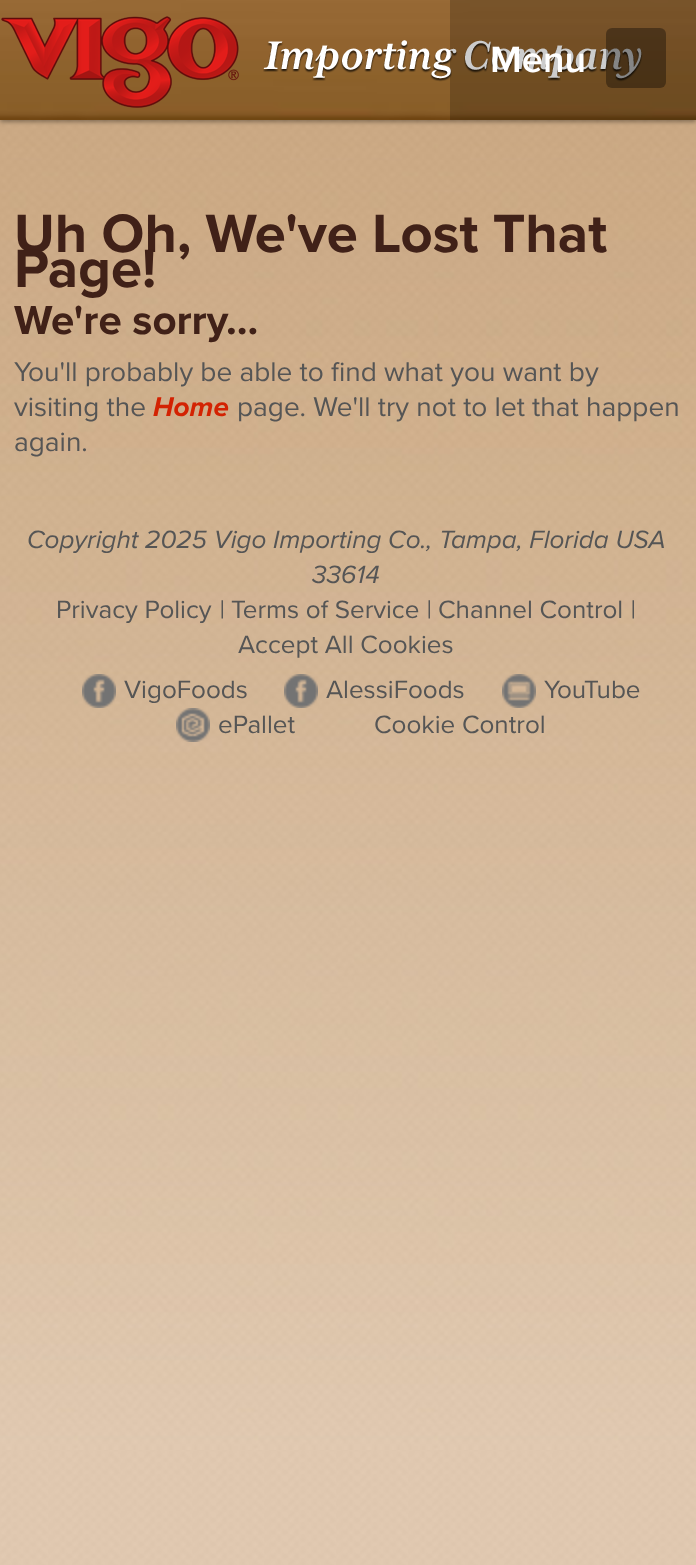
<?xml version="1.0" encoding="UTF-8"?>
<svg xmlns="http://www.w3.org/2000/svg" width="696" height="1565">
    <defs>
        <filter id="blur1" x="-50%" y="-200%" width="200%" height="500%"><feGaussianBlur stdDeviation="2"/></filter>
    </defs>
    <rect width="100%" height="100%" fill="#FFFFFF"/>
    <image x="0" y="1450" width="696" height="115" href="img_01.png"/>
    <image x="0" y="120" width="696" height="1330" href="img_02.png"/>
    <rect x="0" y="2" width="696" height="120" fill="#000000" fill-opacity="0.35" filter="url(#blur1)"/>
    <image x="0" y="0" width="696" height="120" href="img_03.png"/>
    <image x="1" y="16" width="238" height="92" href="img_04.png"/>
    <image x="263" y="40" width="380" height="42" href="img_05.png"/>
    <rect x="450" y="0" width="246" height="120" fill="#000000" fill-opacity="0.2"/>
    <text x="490" y="72" font-family="Proxima Nova" font-size="38" font-weight="600" fill="#FFFFFF">Menu</text>
    <rect x="606" y="28" width="60" height="60" rx="6" fill="#000000" fill-opacity="0.35"/>
    <text font-family="Proxima Nova" font-size="56" font-weight="700" fill="#402118">
        <tspan x="14" y="252">Uh Oh, We've Lost That</tspan>
        <tspan x="14" y="287">Page!</tspan>
    </text>
    <text x="14" y="334" font-family="Proxima Nova" font-size="42" font-weight="700" fill="#402118">We're sorry...</text>
    <text font-family="Proxima Nova" font-size="28" fill="#555555">
        <tspan x="14" y="381">You'll probably be able to find what you want by</tspan>
        <tspan x="14" y="416">visiting the</tspan>
    </text>
    <text x="153" y="416" font-family="Proxima Nova" font-size="28" font-weight="700" font-style="italic" fill="#D32202">Home</text>
    <text x="237" y="416" font-family="Proxima Nova" font-size="28" fill="#555555">page. We'll try not to let that happen</text>
    <text x="14" y="451" font-family="Proxima Nova" font-size="28" fill="#555555">again.</text>
    <text x="27" y="548" font-family="Proxima Nova" font-size="26" font-style="italic" fill="#555555">Copyright 2025 Vigo Importing Co., Tampa, Florida USA</text>
    <text x="312" y="583" font-family="Proxima Nova" font-size="26" font-style="italic" fill="#555555">33614</text>
    <text x="56" y="618" font-family="Proxima Nova" font-size="26" fill="#555555">Privacy Policy</text>
    <text x="219" y="618" font-family="Proxima Nova" font-size="26" font-style="italic" fill="#555555">|</text>
    <text x="231" y="618" font-family="Proxima Nova" font-size="26" fill="#555555">Terms of Service</text>
    <text x="426" y="618" font-family="Proxima Nova" font-size="26" font-style="italic" fill="#555555">|</text>
    <text x="438" y="618" font-family="Proxima Nova" font-size="26" fill="#555555">Channel Control</text>
    <text x="630" y="618" font-family="Proxima Nova" font-size="26" font-style="italic" fill="#555555">|</text>
    <text x="238" y="653" font-family="Proxima Nova" font-size="26" fill="#555555">Accept All Cookies</text>
    <image x="82" y="674" width="34" height="34" href="img_06.png"/>
    <text x="124" y="698" font-family="Proxima Nova" font-size="26" fill="#555555">VigoFoods</text>
    <image x="284" y="674" width="34" height="34" href="img_07.png"/>
    <text x="326" y="698" font-family="Proxima Nova" font-size="26" fill="#555555">AlessiFoods</text>
    <image x="502" y="674" width="34" height="34" href="img_08.png"/>
    <text x="544" y="698" font-family="Proxima Nova" font-size="26" fill="#555555">YouTube</text>
    <image x="176" y="708" width="34" height="34" href="img_09.png"/>
    <text x="218" y="733" font-family="Proxima Nova" font-size="26" fill="#555555">ePallet</text>
    <text x="374" y="733" font-family="Proxima Nova" font-size="26" fill="#555555">Cookie Control</text>
</svg>
